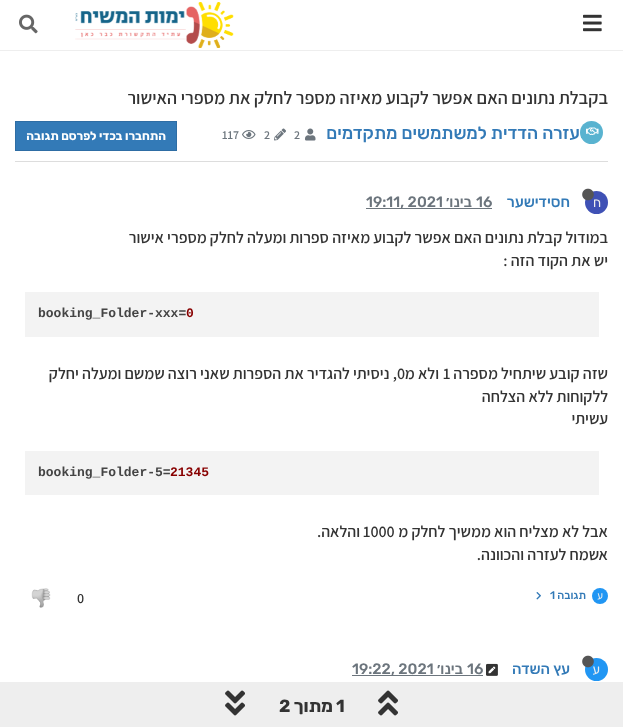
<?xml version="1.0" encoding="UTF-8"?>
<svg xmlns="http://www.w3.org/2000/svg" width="623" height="727">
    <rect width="100%" height="100%" fill="#FFFFFF"/>
    <rect x="0" y="50" width="623" height="1" fill="#EEEEEE"/>
    <image x="583" y="14" width="19" height="18" href="img_01.png"/>
    <image x="75" y="2" width="159" height="46" href="img_02.png"/>
    <image x="19" y="14" width="19" height="20" href="img_03.png"/>
    <text x="608" y="104" font-family="Assistant" font-size="18" font-weight="600" direction="rtl" fill="#333333">בקבלת נתונים האם אפשר לקבוע מאיזה מספר לחלק את מספרי האישור</text>
    <rect x="15" y="161" width="593" height="1" fill="#DDDDDD"/>
    <circle cx="591.5" cy="132.5" r="11.5" fill="#59B3D0"/>
    <image x="586" y="127" width="13" height="8" href="img_04.png"/>
    <text x="580" y="139" font-family="Rubik" font-size="17.6" font-weight="500" direction="rtl" fill="#337AB7">עזרה הדדית למשתמשים מתקדמים</text>
    <image x="305" y="128" width="11" height="13" href="img_05.png"/>
    <text x="294" y="139" font-family="Assistant" font-size="12" font-weight="600" fill="#6C757D">2</text>
    <image x="274" y="128" width="12" height="13" href="img_06.png"/>
    <text x="264" y="139" font-family="Assistant" font-size="12" font-weight="600" fill="#6C757D">2</text>
    <image x="242" y="130" width="14" height="9" href="img_07.png"/>
    <text x="222" y="139" font-family="Assistant" font-size="12" font-weight="600" fill="#6C757D">117</text>
    <rect x="15.5" y="121.5" width="161" height="29" fill="#337AB7" stroke="#2E6DA4"/>
    <text x="166" y="140" font-family="Rubik" font-size="12" font-weight="700" direction="rtl" fill="#FFFFFF">התחברו בכדי לפרסם תגובה</text>
    <circle cx="596.5" cy="202.5" r="11.5" fill="#3F51B5"/>
    <text x="601" y="207" font-family="Rubik" font-size="13" direction="rtl" fill="#EEEEEE">ח</text>
    <image x="582" y="188" width="12" height="13" href="img_08.png"/>
    <text x="570" y="207" font-family="Rubik" font-size="15" font-weight="500" direction="rtl" fill="#337AB7">חסידישער</text>
    <text x="476" y="207" font-family="Rubik" font-size="15" font-weight="500" fill="#6C757D">16</text>
    <text x="472" y="207" font-family="Rubik" font-size="15" font-weight="500" direction="rtl" fill="#6C757D">בינו׳</text>
    <rect x="366" y="208" width="126" height="1" fill="#6C757D"/>
    <text x="366" y="207" font-family="Rubik" font-size="15" font-weight="500" fill="#6C757D">19:11, 2021</text>
    <text font-family="Assistant" font-size="16" font-weight="600" direction="rtl" fill="#333333">
        <tspan x="608" y="243">במודול קבלת נתונים האם אפשר לקבוע מאיזה ספרות ומעלה לחלק מספרי אישור</tspan>
        <tspan x="608" y="266">יש את הקוד הזה :</tspan>
    </text>
    <rect x="25" y="292" width="574" height="45" fill="#F3F3F3"/>
    <text x="186" y="317" font-family="Liberation Mono" font-size="13" font-weight="700" fill="#880000">0</text>
    <text x="38" y="317" font-family="Liberation Mono" font-size="13" font-weight="700" fill="#444444">booking_Folder-xxx=</text>
    <text x="608" y="379" font-family="Assistant" font-size="16" font-weight="600" direction="rtl" fill="#333333">שזה קובע שיתחיל מספרה</text>
    <text x="443" y="379" font-family="Assistant" font-size="16" font-weight="600" fill="#333333">1</text>
    <text x="439" y="379" font-family="Assistant" font-size="16" font-weight="600" direction="rtl" fill="#333333">ולא מ</text>
    <text x="397" y="379" font-family="Assistant" font-size="16" font-weight="600" fill="#333333">0</text>
    <text x="397" y="379" font-family="Assistant" font-size="16" font-weight="600" direction="rtl" fill="#333333">, ניסיתי להגדיר את הספרות שאני רוצה שמשם ומעלה יחלק</text>
    <text font-family="Assistant" font-size="16" font-weight="600" direction="rtl" fill="#333333">
        <tspan x="608" y="402">ללקוחות ללא הצלחה</tspan>
        <tspan x="608" y="424">עשיתי</tspan>
    </text>
    <rect x="25" y="451" width="574" height="44" fill="#F3F3F3"/>
    <text x="170" y="476" font-family="Liberation Mono" font-size="13" font-weight="700" fill="#880000">21345</text>
    <text x="38" y="476" font-family="Liberation Mono" font-size="13" font-weight="700" fill="#444444">booking_Folder-5=</text>
    <text x="608" y="537" font-family="Assistant" font-size="16" font-weight="600" direction="rtl" fill="#333333">אבל לא מצליח הוא ממשיך לחלק מ</text>
    <text x="363" y="537" font-family="Assistant" font-size="16" font-weight="600" fill="#333333">1000</text>
    <text x="360" y="537" font-family="Assistant" font-size="16" font-weight="600" direction="rtl" fill="#333333">והלאה.</text>
    <text x="608" y="560" font-family="Assistant" font-size="16" font-weight="600" direction="rtl" fill="#333333">אשמח לעזרה והכוונה.</text>
    <circle cx="600" cy="596" r="8" fill="#2196F3"/>
    <text x="603" y="599" font-family="Rubik" font-size="10" direction="rtl" fill="#EEEEEE">ע</text>
    <text x="586" y="599" font-family="Rubik" font-size="11" font-weight="500" direction="rtl" fill="#337AB7">תגובה</text>
    <text x="550" y="599" font-family="Rubik" font-size="11" font-weight="500" fill="#337AB7">1</text>
    <image x="536" y="592" width="5" height="8" href="img_09.png"/>
    <text x="77" y="603" font-family="Assistant" font-size="14" font-weight="600" fill="#333333">0</text>
    <image x="31" y="588" width="20" height="20" href="img_10.png"/>
    <circle cx="596.5" cy="669.5" r="11.5" fill="#2196F3"/>
    <text x="600" y="674" font-family="Rubik" font-size="13" direction="rtl" fill="#EEEEEE">ע</text>
    <image x="582" y="655" width="12" height="13" href="img_11.png"/>
    <text x="570" y="674" font-family="Rubik" font-size="15" font-weight="500" direction="rtl" fill="#337AB7">עץ השדה</text>
    <image x="486" y="663" width="12" height="13" href="img_12.png"/>
    <text x="467" y="674" font-family="Rubik" font-size="15" font-weight="500" fill="#6C757D">16</text>
    <text x="463" y="674" font-family="Rubik" font-size="15" font-weight="500" direction="rtl" fill="#6C757D">בינו׳</text>
    <rect x="352" y="675" width="131" height="1" fill="#6C757D"/>
    <text x="352" y="674" font-family="Rubik" font-size="15" font-weight="500" fill="#6C757D">19:22, 2021</text>
    <rect x="0" y="682" width="623" height="45" fill="#EEEEEE"/>
    <image x="378" y="690" width="20" height="26" href="img_13.png"/>
    <text x="336" y="712" font-family="Rubik" font-size="17.6" font-weight="700" fill="#333333">1</text>
    <text x="333" y="712" font-family="Rubik" font-size="17.6" font-weight="700" direction="rtl" fill="#333333">מתוך</text>
    <text x="279" y="712" font-family="Rubik" font-size="17.6" font-weight="700" fill="#333333">2</text>
    <image x="225" y="690" width="20" height="26" href="img_14.png"/>
</svg>
